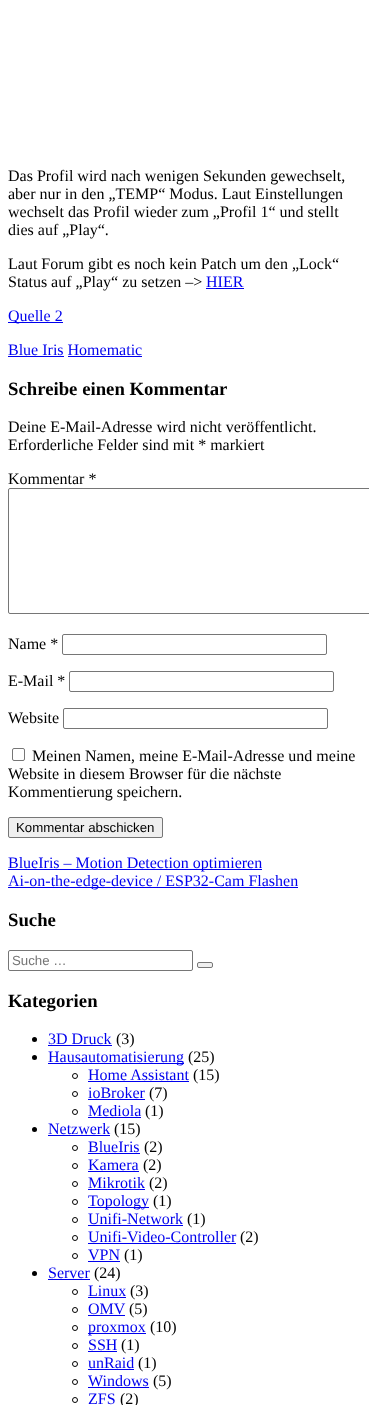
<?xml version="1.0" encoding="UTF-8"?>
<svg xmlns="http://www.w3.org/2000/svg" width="369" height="1405">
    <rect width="100%" height="100%" fill="#FFFFFF"/>
    <text font-family="Liberation Serif" font-size="16" fill="#000000">
        <tspan x="8" y="181">Das Profil wird nach wenigen Sekunden gewechselt,</tspan>
        <tspan x="8" y="199">aber nur in den „TEMP“ Modus. Laut Einstellungen</tspan>
        <tspan x="8" y="217">wechselt das Profil wieder zum „Profil 1“ und stellt</tspan>
        <tspan x="8" y="235">dies auf „Play“.</tspan>
    </text>
    <text font-family="Liberation Serif" font-size="16" fill="#000000">
        <tspan x="8" y="269">Laut Forum gibt es noch kein Patch um den „Lock“</tspan>
        <tspan x="8" y="287">Status auf „Play“ zu setzen –&gt;</tspan>
    </text>
    <text x="206" y="287" font-family="Liberation Serif" font-size="16" fill="#0000EE">HIER</text>
    <rect x="206" y="288" width="38" height="1" fill="#0000EE"/>
    <rect x="8" y="322" width="55" height="1" fill="#0000EE"/>
    <text x="8" y="321" font-family="Liberation Serif" font-size="16" fill="#0000EE">Quelle 2</text>
    <text x="8" y="355" font-family="Liberation Serif" font-size="16" fill="#0000EE">Blue Iris Homematic</text>
    <rect x="8" y="356" width="56" height="1" fill="#0000EE"/>
    <rect x="68" y="356" width="74" height="1" fill="#0000EE"/>
    <text x="8" y="395" font-family="Liberation Serif" font-size="18.75" font-weight="700" fill="#000000">Schreibe einen Kommentar</text>
    <text font-family="Liberation Serif" font-size="16" fill="#000000">
        <tspan x="8" y="432">Deine E-Mail-Adresse wird nicht veröffentlicht.</tspan>
        <tspan x="8" y="450">Erforderliche Felder sind mit * markiert</tspan>
    </text>
    <text x="8" y="484" font-family="Liberation Serif" font-size="16" fill="#000000">Kommentar *</text>
    <rect x="8.5" y="488.5" width="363" height="125" rx="1.5" fill="none" stroke="#767676"/>
    <text x="8" y="649" font-family="Liberation Serif" font-size="16" fill="#000000">Name *</text>
    <rect x="62.5" y="634.5" width="264" height="20" rx="1.5" fill="none" stroke="#767676"/>
    <text x="8" y="686" font-family="Liberation Serif" font-size="16" fill="#000000">E-Mail *</text>
    <rect x="69.5" y="671.5" width="264" height="20" rx="1.5" fill="none" stroke="#767676"/>
    <text x="8" y="723" font-family="Liberation Serif" font-size="16" fill="#000000">Website</text>
    <rect x="63.5" y="708.5" width="264" height="20" rx="1.5" fill="none" stroke="#767676"/>
    <rect x="12.5" y="748.5" width="12" height="12" rx="1.5" fill="none" stroke="#767676"/>
    <text x="32" y="761" font-family="Liberation Serif" font-size="16" fill="#000000">Meinen Namen, meine E-Mail-Adresse und meine</text>
    <text font-family="Liberation Serif" font-size="16" fill="#000000">
        <tspan x="8" y="779">Website in diesem Browser für die nächste</tspan>
        <tspan x="8" y="797">Kommentierung speichern.</tspan>
    </text>
    <rect x="8.5" y="817.5" width="154" height="20" rx="1.5" fill="#EFEFEF" stroke="#767676"/>
    <text x="16" y="832" font-family="Liberation Sans" font-size="13.25" fill="#000000">Kommentar abschicken</text>
    <rect x="8" y="869" width="254" height="1" fill="#0000EE"/>
    <text x="8" y="868" font-family="Liberation Serif" font-size="16" fill="#0000EE">BlueIris – Motion Detection optimieren</text>
    <rect x="8" y="887" width="290" height="1" fill="#0000EE"/>
    <text x="8" y="886" font-family="Liberation Serif" font-size="16" fill="#0000EE">Ai-on-the-edge-device / ESP32-Cam Flashen</text>
    <text x="8" y="926" font-family="Liberation Serif" font-size="18.75" font-weight="700" fill="#000000">Suche</text>
    <rect x="8.5" y="950.5" width="184" height="20" rx="1.5" fill="none" stroke="#767676"/>
    <text x="12" y="965" font-family="Liberation Sans" font-size="13.25" fill="#757575">Suche …</text>
    <rect x="197.5" y="962.5" width="15" height="5" rx="1.5" fill="#EFEFEF" stroke="#767676"/>
    <text x="8" y="1007" font-family="Liberation Serif" font-size="18.75" font-weight="700" fill="#000000">Kategorien</text>
    <circle cx="34.5" cy="1039.5" r="2.5" fill="#000000"/>
    <text x="48" y="1044" font-family="Liberation Serif" font-size="16" fill="#0000EE">3D Druck</text>
    <rect x="48" y="1045" width="64" height="1" fill="#0000EE"/>
    <text x="116" y="1044" font-family="Liberation Serif" font-size="16" fill="#000000">(3)</text>
    <circle cx="34.5" cy="1057.5" r="2.5" fill="#000000"/>
    <rect x="48" y="1063" width="136" height="1" fill="#0000EE"/>
    <text x="48" y="1062" font-family="Liberation Serif" font-size="16" fill="#0000EE">Hausautomatisierung</text>
    <text x="188" y="1062" font-family="Liberation Serif" font-size="16" fill="#000000">(25)</text>
    <circle cx="75" cy="1076" r="2.5" fill="none" stroke="#000000"/>
    <text x="88" y="1080" font-family="Liberation Serif" font-size="16" fill="#0000EE">Home Assistant</text>
    <rect x="88" y="1081" width="101" height="1" fill="#0000EE"/>
    <text x="193" y="1080" font-family="Liberation Serif" font-size="16" fill="#000000">(15)</text>
    <circle cx="75" cy="1094" r="2.5" fill="none" stroke="#000000"/>
    <text x="88" y="1098" font-family="Liberation Serif" font-size="16" fill="#0000EE">ioBroker</text>
    <rect x="88" y="1099" width="57" height="1" fill="#0000EE"/>
    <text x="149" y="1098" font-family="Liberation Serif" font-size="16" fill="#000000">(7)</text>
    <circle cx="75" cy="1112" r="2.5" fill="none" stroke="#000000"/>
    <text x="88" y="1116" font-family="Liberation Serif" font-size="16" fill="#0000EE">Mediola</text>
    <rect x="88" y="1117" width="53" height="1" fill="#0000EE"/>
    <text x="145" y="1116" font-family="Liberation Serif" font-size="16" fill="#000000">(1)</text>
    <circle cx="34.5" cy="1129.5" r="2.5" fill="#000000"/>
    <text x="48" y="1134" font-family="Liberation Serif" font-size="16" fill="#0000EE">Netzwerk</text>
    <rect x="48" y="1135" width="62" height="1" fill="#0000EE"/>
    <text x="114" y="1134" font-family="Liberation Serif" font-size="16" fill="#000000">(15)</text>
    <circle cx="75" cy="1148" r="2.5" fill="none" stroke="#000000"/>
    <text x="88" y="1152" font-family="Liberation Serif" font-size="16" fill="#0000EE">BlueIris</text>
    <rect x="88" y="1153" width="52" height="1" fill="#0000EE"/>
    <text x="144" y="1152" font-family="Liberation Serif" font-size="16" fill="#000000">(2)</text>
    <circle cx="75" cy="1166" r="2.5" fill="none" stroke="#000000"/>
    <text x="88" y="1170" font-family="Liberation Serif" font-size="16" fill="#0000EE">Kamera</text>
    <rect x="88" y="1171" width="51" height="1" fill="#0000EE"/>
    <text x="143" y="1170" font-family="Liberation Serif" font-size="16" fill="#000000">(2)</text>
    <circle cx="75" cy="1184" r="2.5" fill="none" stroke="#000000"/>
    <text x="88" y="1188" font-family="Liberation Serif" font-size="16" fill="#0000EE">Mikrotik</text>
    <rect x="88" y="1189" width="57" height="1" fill="#0000EE"/>
    <text x="149" y="1188" font-family="Liberation Serif" font-size="16" fill="#000000">(2)</text>
    <circle cx="75" cy="1202" r="2.5" fill="none" stroke="#000000"/>
    <rect x="88" y="1207" width="61" height="1" fill="#0000EE"/>
    <text x="88" y="1206" font-family="Liberation Serif" font-size="16" fill="#0000EE">Topology</text>
    <text x="153" y="1206" font-family="Liberation Serif" font-size="16" fill="#000000">(1)</text>
    <circle cx="75" cy="1220" r="2.5" fill="none" stroke="#000000"/>
    <text x="88" y="1224" font-family="Liberation Serif" font-size="16" fill="#0000EE">Unifi-Network</text>
    <rect x="88" y="1225" width="95" height="1" fill="#0000EE"/>
    <text x="187" y="1224" font-family="Liberation Serif" font-size="16" fill="#000000">(1)</text>
    <circle cx="75" cy="1238" r="2.5" fill="none" stroke="#000000"/>
    <text x="88" y="1242" font-family="Liberation Serif" font-size="16" fill="#0000EE">Unifi-Video-Controller</text>
    <rect x="88" y="1243" width="148" height="1" fill="#0000EE"/>
    <text x="240" y="1242" font-family="Liberation Serif" font-size="16" fill="#000000">(2)</text>
    <circle cx="75" cy="1256" r="2.5" fill="none" stroke="#000000"/>
    <text x="88" y="1260" font-family="Liberation Serif" font-size="16" fill="#0000EE">VPN</text>
    <rect x="88" y="1261" width="32" height="1" fill="#0000EE"/>
    <text x="124" y="1260" font-family="Liberation Serif" font-size="16" fill="#000000">(1)</text>
    <circle cx="34.5" cy="1273.5" r="2.5" fill="#000000"/>
    <text x="48" y="1278" font-family="Liberation Serif" font-size="16" fill="#0000EE">Server</text>
    <rect x="48" y="1279" width="42" height="1" fill="#0000EE"/>
    <text x="94" y="1278" font-family="Liberation Serif" font-size="16" fill="#000000">(24)</text>
    <circle cx="75" cy="1292" r="2.5" fill="none" stroke="#000000"/>
    <text x="88" y="1296" font-family="Liberation Serif" font-size="16" fill="#0000EE">Linux</text>
    <rect x="88" y="1297" width="38" height="1" fill="#0000EE"/>
    <text x="130" y="1296" font-family="Liberation Serif" font-size="16" fill="#000000">(3)</text>
    <circle cx="75" cy="1310" r="2.5" fill="none" stroke="#000000"/>
    <text x="88" y="1314" font-family="Liberation Serif" font-size="16" fill="#0000EE">OMV</text>
    <rect x="88" y="1315" width="37" height="1" fill="#0000EE"/>
    <text x="129" y="1314" font-family="Liberation Serif" font-size="16" fill="#000000">(5)</text>
    <circle cx="75" cy="1328" r="2.5" fill="none" stroke="#000000"/>
    <rect x="88" y="1333" width="58" height="1" fill="#0000EE"/>
    <text x="88" y="1332" font-family="Liberation Serif" font-size="16" fill="#0000EE">proxmox</text>
    <text x="150" y="1332" font-family="Liberation Serif" font-size="16" fill="#000000">(10)</text>
    <circle cx="75" cy="1346" r="2.5" fill="none" stroke="#000000"/>
    <text x="88" y="1350" font-family="Liberation Serif" font-size="16" fill="#0000EE">SSH</text>
    <rect x="88" y="1351" width="29" height="1" fill="#0000EE"/>
    <text x="121" y="1350" font-family="Liberation Serif" font-size="16" fill="#000000">(1)</text>
    <circle cx="75" cy="1364" r="2.5" fill="none" stroke="#000000"/>
    <text x="88" y="1368" font-family="Liberation Serif" font-size="16" fill="#0000EE">unRaid</text>
    <rect x="88" y="1369" width="46" height="1" fill="#0000EE"/>
    <text x="138" y="1368" font-family="Liberation Serif" font-size="16" fill="#000000">(1)</text>
    <circle cx="75" cy="1382" r="2.5" fill="none" stroke="#000000"/>
    <text x="88" y="1386" font-family="Liberation Serif" font-size="16" fill="#0000EE">Windows</text>
    <rect x="88" y="1387" width="61" height="1" fill="#0000EE"/>
    <text x="153" y="1386" font-family="Liberation Serif" font-size="16" fill="#000000">(5)</text>
    <circle cx="75" cy="1400" r="2.5" fill="none" stroke="#000000"/>
    <text x="88" y="1404" font-family="Liberation Serif" font-size="16" fill="#0000EE">ZFS</text>
    <text x="120" y="1404" font-family="Liberation Serif" font-size="16" fill="#000000">(2)</text>
</svg>
